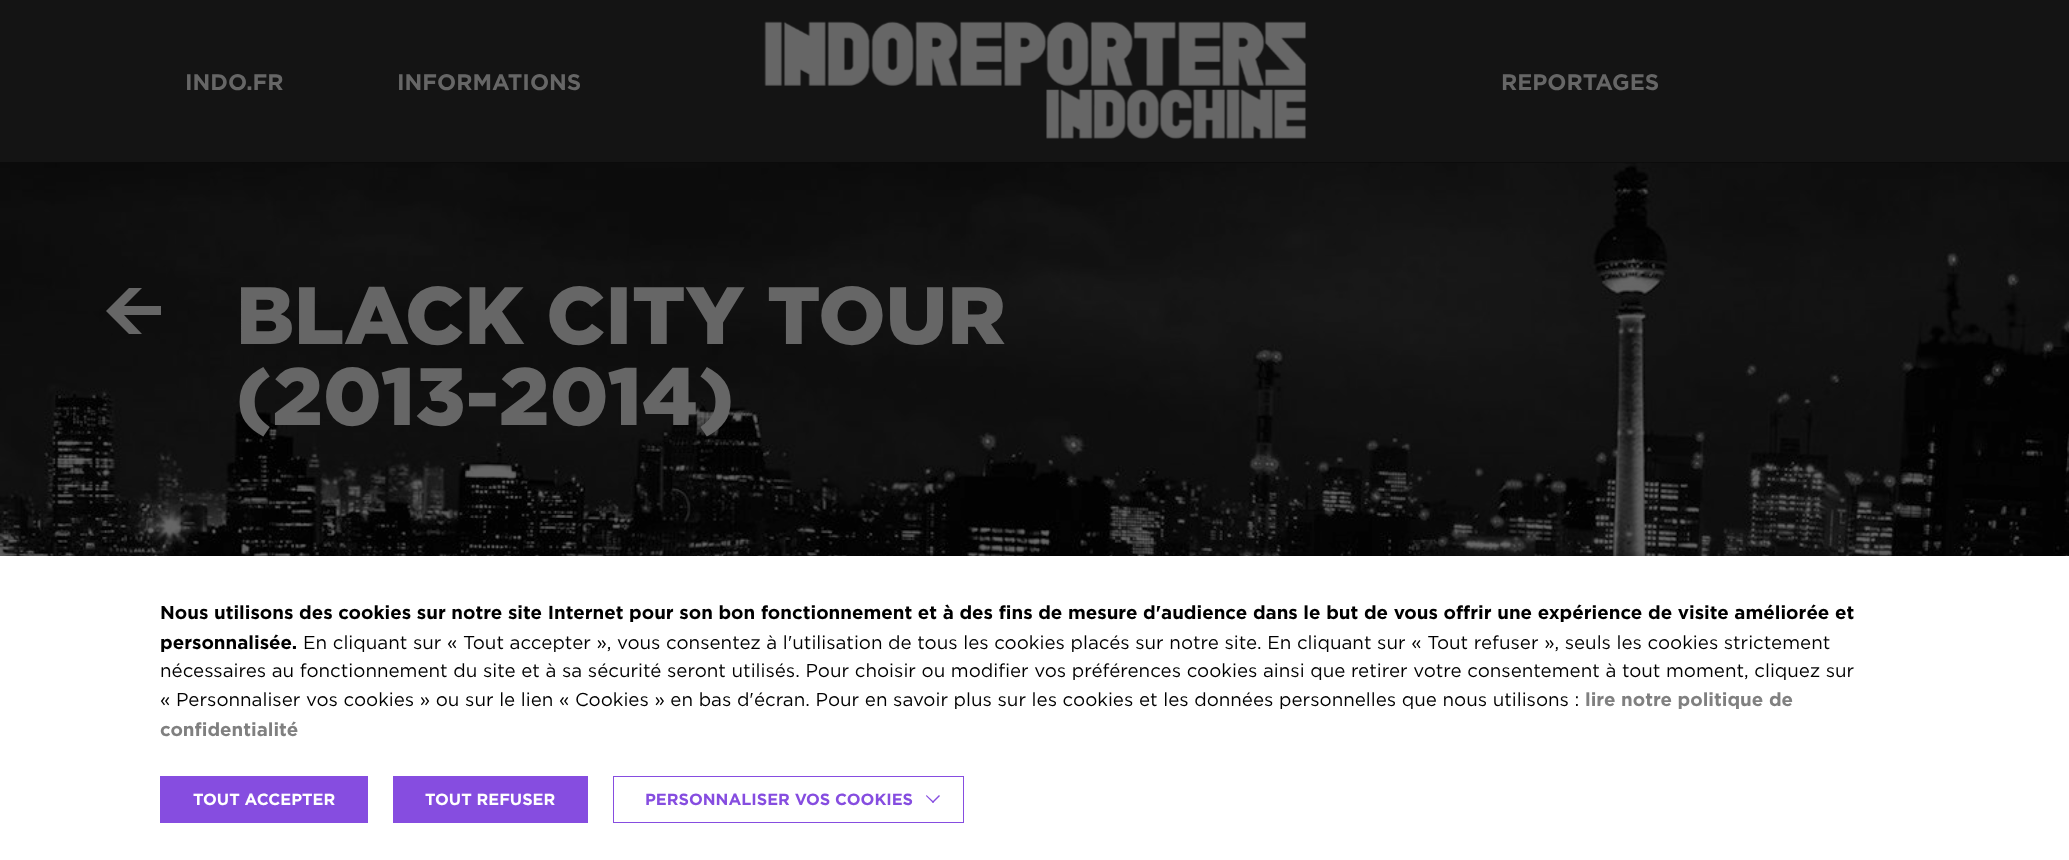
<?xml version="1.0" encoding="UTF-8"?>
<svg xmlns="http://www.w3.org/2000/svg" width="2069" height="860">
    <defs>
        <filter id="blur1" x="-50%" y="-200%" width="200%" height="500%"><feGaussianBlur stdDeviation="3"/></filter>
    </defs>
    <rect width="100%" height="100%" fill="#666666"/>
    <image x="0" y="162" width="2069" height="394" href="img_02.png"/>
    <rect x="0" y="0" width="2069" height="163" fill="#000000" fill-opacity="0.8"/>
    <image x="764" y="21" width="542" height="118" href="img_01.png"/>
    <text x="185" y="90" font-family="Gotham" font-size="22.5" font-weight="700" fill="#666666">INDO.FR</text>
    <text x="397" y="90" font-family="Gotham" font-size="22.5" font-weight="700" fill="#666666">INFORMATIONS</text>
    <text x="1501" y="90" font-family="Gotham" font-size="22.5" font-weight="700" fill="#666666">REPORTAGES</text>
    <path d="M 161 306 H 124 L 142 288 H 129 L 106 311 L 129 334 H 142 L 124 315 H 161 Z" fill="#666666"/>
    <text font-family="Gotham" font-size="81.25" font-weight="900" fill="#666666">
        <tspan x="236" y="344">BLACK CITY TOUR</tspan>
        <tspan x="236" y="425">(2013-2014)</tspan>
    </text>
    <rect x="-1" y="555" width="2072" height="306" fill="#000000" fill-opacity="0.2" filter="url(#blur1)"/>
    <rect x="0" y="556" width="2069" height="304" fill="#FFFFFF"/>
    <text font-family="Gotham" font-size="18.75" font-weight="700" fill="#000000">
        <tspan x="160" y="619">Nous utilisons des cookies sur notre site Internet pour son bon fonctionnement et à des fins de mesure d'audience dans le but de vous offrir une expérience de visite améliorée et</tspan>
        <tspan x="160" y="649">personnalisée.</tspan>
    </text>
    <text x="303" y="649" font-family="Gotham" font-size="18.75" fill="#000000">En cliquant sur « Tout accepter », vous consentez à l'utilisation de tous les cookies placés sur notre site. En cliquant sur « Tout refuser », seuls les cookies strictement</text>
    <text font-family="Gotham" font-size="18.75" fill="#000000">
        <tspan x="160" y="677">nécessaires au fonctionnement du site et à sa sécurité seront utilisés. Pour choisir ou modifier vos préférences cookies ainsi que retirer votre consentement à tout moment, cliquez sur</tspan>
        <tspan x="160" y="706">« Personnaliser vos cookies » ou sur le lien « Cookies » en bas d'écran. Pour en savoir plus sur les cookies et les données personnelles que nous utilisons :</tspan>
    </text>
    <text x="1585" y="706" font-family="Gotham" font-size="18.75" font-weight="700" fill="#808080">lire notre politique de</text>
    <text x="160" y="736" font-family="Gotham" font-size="18.75" font-weight="700" fill="#808080">confidentialité</text>
    <rect x="160" y="776" width="208" height="47" fill="#864DE0"/>
    <text x="193" y="805" font-family="Gotham" font-size="16.25" font-weight="700" fill="#FFFFFF">TOUT ACCEPTER</text>
    <rect x="393" y="776" width="195" height="47" fill="#864DE0"/>
    <text x="425" y="805" font-family="Gotham" font-size="16.25" font-weight="700" fill="#FFFFFF">TOUT REFUSER</text>
    <rect x="613.5" y="776.5" width="350" height="46" fill="none" stroke="#864DE0"/>
    <text x="645" y="805" font-family="Gotham" font-size="16.25" font-weight="700" fill="#864DE0">PERSONNALISER VOS COOKIES</text>
    <path d="M 940 796 L 933 803 L 932 802 L 939 795 Z" fill="#864DE0"/>
    <path d="M 934 802 L 933 803 L 926 796 L 926.5 795 Z" fill="#864DE0"/>
</svg>
